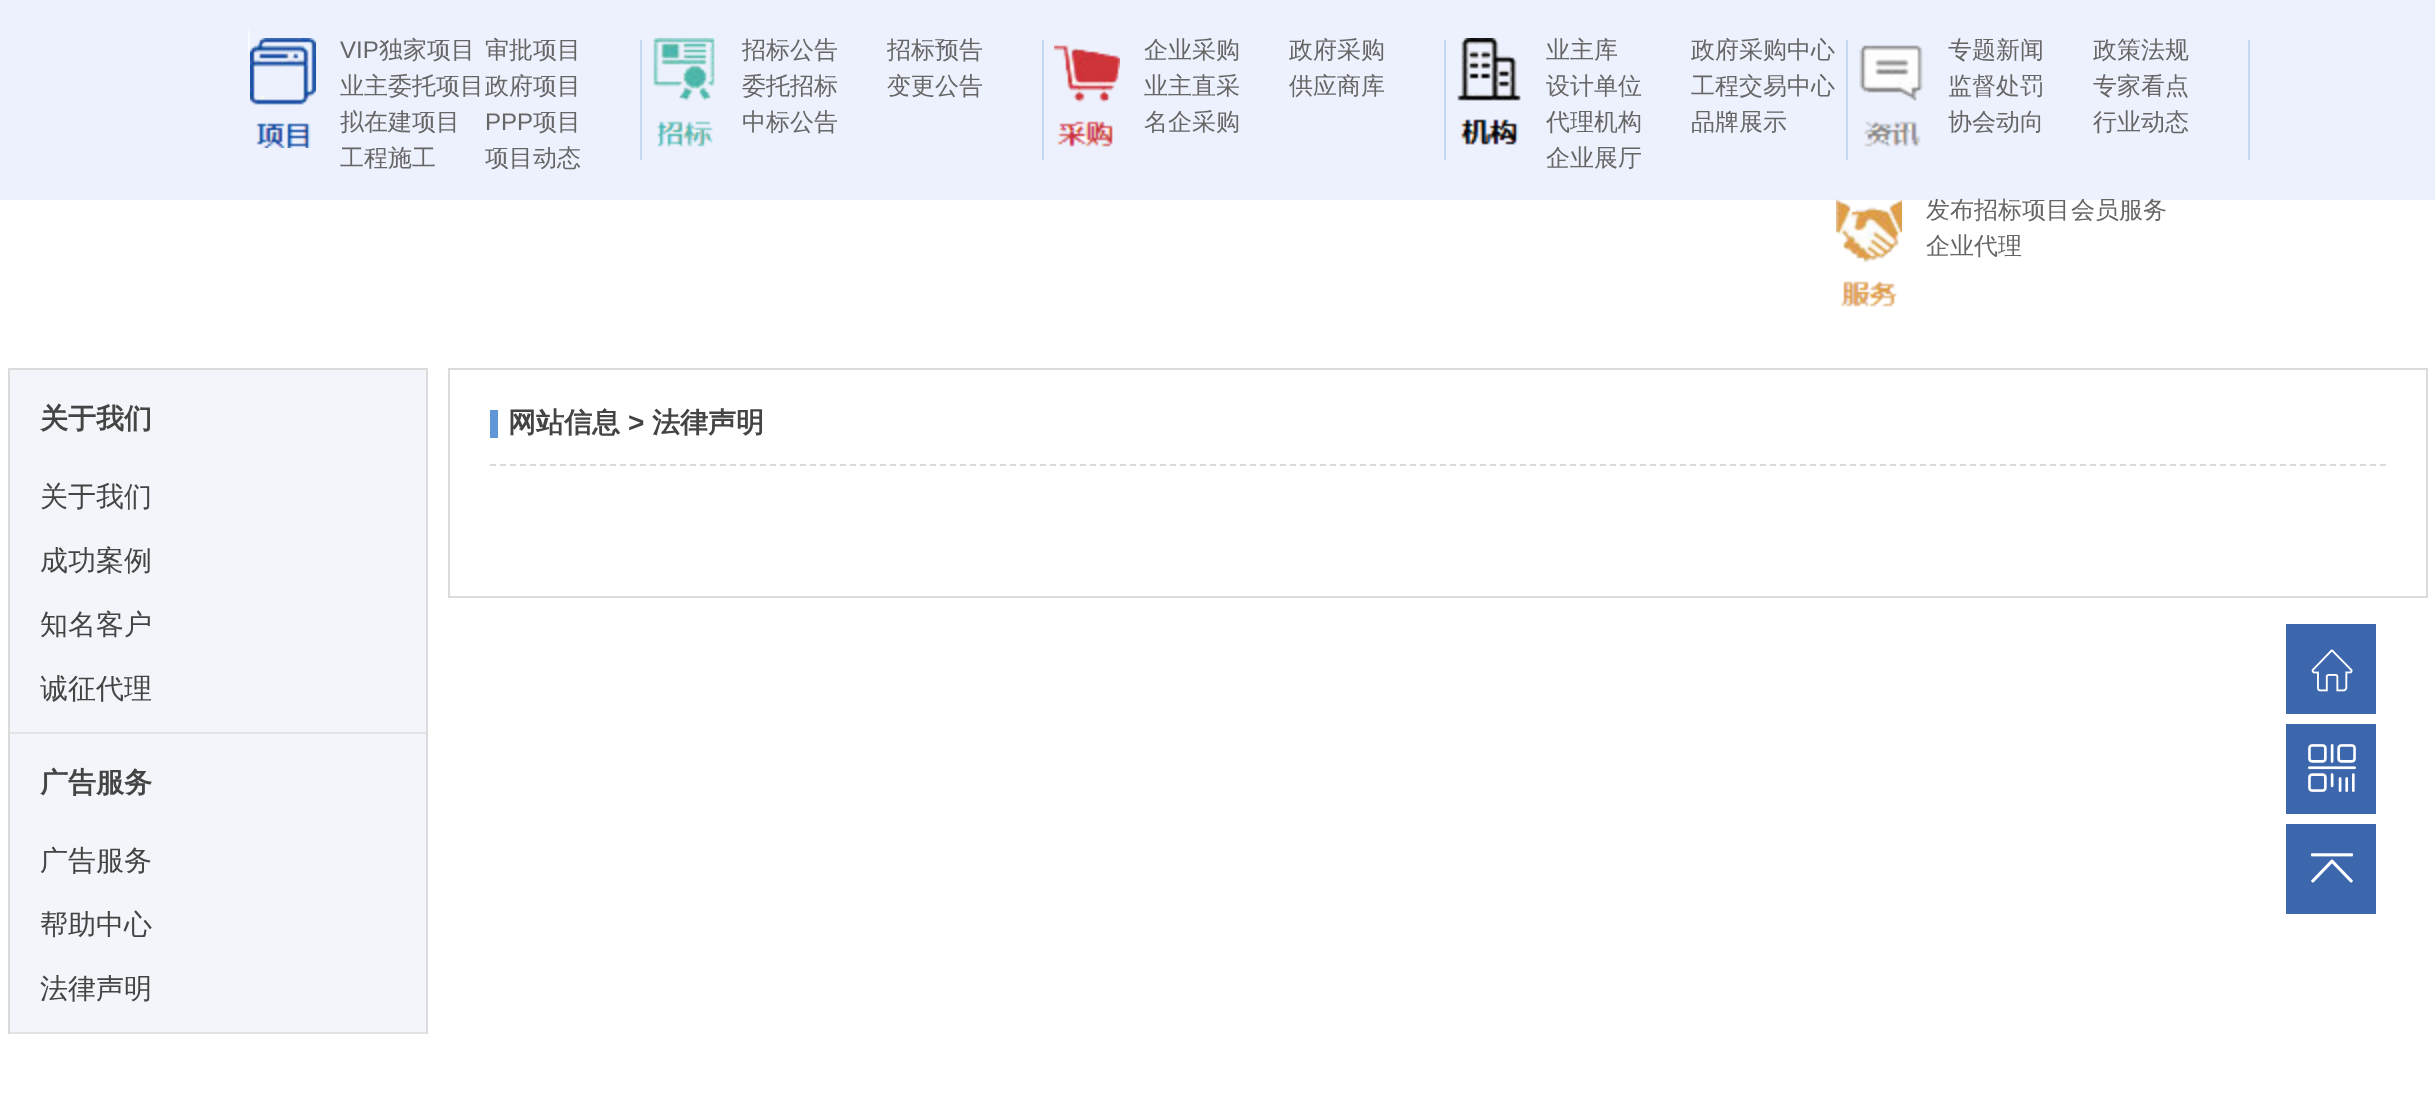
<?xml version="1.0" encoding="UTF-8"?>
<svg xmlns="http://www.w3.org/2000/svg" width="2435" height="1093">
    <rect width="100%" height="100%" fill="#FFFFFF"/>
    <rect x="0" y="0" width="2435" height="200" fill="#EDF1FD"/>
    <image x="248" y="28" width="2" height="30" href="img_01.png"/>
    <image x="250" y="38" width="66" height="110" href="img_02.png"/>
    <text x="340" y="58" font-family="Liberation Sans" font-size="24" fill="#666666">VIP</text>
    <text x="379" y="58" font-family="WenQuanYi Zen Hei" font-size="24" font-weight="500" fill="#666666">独家项目</text>
    <text x="485" y="58" font-family="WenQuanYi Zen Hei" font-size="24" font-weight="500" fill="#666666">审批项目</text>
    <text x="340" y="94" font-family="WenQuanYi Zen Hei" font-size="24" font-weight="500" fill="#666666">业主委托项目</text>
    <text x="485" y="94" font-family="WenQuanYi Zen Hei" font-size="24" font-weight="500" fill="#666666">政府项目</text>
    <text x="340" y="130" font-family="WenQuanYi Zen Hei" font-size="24" font-weight="500" fill="#666666">拟在建项目</text>
    <text x="485" y="130" font-family="Liberation Sans" font-size="24" fill="#666666">PPP</text>
    <text x="533" y="130" font-family="WenQuanYi Zen Hei" font-size="24" font-weight="500" fill="#666666">项目</text>
    <text x="340" y="166" font-family="WenQuanYi Zen Hei" font-size="24" font-weight="500" fill="#666666">工程施工</text>
    <text x="485" y="166" font-family="WenQuanYi Zen Hei" font-size="24" font-weight="500" fill="#666666">项目动态</text>
    <rect x="640" y="40" width="2" height="120" fill="#C6D7F3"/>
    <image x="653" y="38" width="62" height="109" href="img_03.png"/>
    <text x="742" y="58" font-family="WenQuanYi Zen Hei" font-size="24" font-weight="500" fill="#666666">招标公告</text>
    <text x="887" y="58" font-family="WenQuanYi Zen Hei" font-size="24" font-weight="500" fill="#666666">招标预告</text>
    <text x="742" y="94" font-family="WenQuanYi Zen Hei" font-size="24" font-weight="500" fill="#666666">委托招标</text>
    <text x="887" y="94" font-family="WenQuanYi Zen Hei" font-size="24" font-weight="500" fill="#666666">变更公告</text>
    <text x="742" y="130" font-family="WenQuanYi Zen Hei" font-size="24" font-weight="500" fill="#666666">中标公告</text>
    <rect x="1042" y="40" width="2" height="120" fill="#C6D7F3"/>
    <image x="1054" y="45" width="66" height="102" href="img_04.png"/>
    <text x="1144" y="58" font-family="WenQuanYi Zen Hei" font-size="24" font-weight="500" fill="#666666">企业采购</text>
    <text x="1289" y="58" font-family="WenQuanYi Zen Hei" font-size="24" font-weight="500" fill="#666666">政府采购</text>
    <text x="1144" y="94" font-family="WenQuanYi Zen Hei" font-size="24" font-weight="500" fill="#666666">业主直采</text>
    <text x="1289" y="94" font-family="WenQuanYi Zen Hei" font-size="24" font-weight="500" fill="#666666">供应商库</text>
    <text x="1144" y="130" font-family="WenQuanYi Zen Hei" font-size="24" font-weight="500" fill="#666666">名企采购</text>
    <rect x="1444" y="40" width="2" height="120" fill="#C6D7F3"/>
    <image x="1457" y="38" width="64" height="107" href="img_05.png"/>
    <text x="1546" y="58" font-family="WenQuanYi Zen Hei" font-size="24" font-weight="500" fill="#666666">业主库</text>
    <text x="1691" y="58" font-family="WenQuanYi Zen Hei" font-size="24" font-weight="500" fill="#666666">政府采购中心</text>
    <text x="1546" y="94" font-family="WenQuanYi Zen Hei" font-size="24" font-weight="500" fill="#666666">设计单位</text>
    <text x="1691" y="94" font-family="WenQuanYi Zen Hei" font-size="24" font-weight="500" fill="#666666">工程交易中心</text>
    <text x="1546" y="130" font-family="WenQuanYi Zen Hei" font-size="24" font-weight="500" fill="#666666">代理机构</text>
    <text x="1691" y="130" font-family="WenQuanYi Zen Hei" font-size="24" font-weight="500" fill="#666666">品牌展示</text>
    <text x="1546" y="166" font-family="WenQuanYi Zen Hei" font-size="24" font-weight="500" fill="#666666">企业展厅</text>
    <rect x="1846" y="40" width="2" height="120" fill="#C6D7F3"/>
    <image x="1859" y="45" width="64" height="102" href="img_06.png"/>
    <text x="1948" y="58" font-family="WenQuanYi Zen Hei" font-size="24" font-weight="500" fill="#666666">专题新闻</text>
    <text x="2093" y="58" font-family="WenQuanYi Zen Hei" font-size="24" font-weight="500" fill="#666666">政策法规</text>
    <text x="1948" y="94" font-family="WenQuanYi Zen Hei" font-size="24" font-weight="500" fill="#666666">监督处罚</text>
    <text x="2093" y="94" font-family="WenQuanYi Zen Hei" font-size="24" font-weight="500" fill="#666666">专家看点</text>
    <text x="1948" y="130" font-family="WenQuanYi Zen Hei" font-size="24" font-weight="500" fill="#666666">协会动向</text>
    <text x="2093" y="130" font-family="WenQuanYi Zen Hei" font-size="24" font-weight="500" fill="#666666">行业动态</text>
    <rect x="2248" y="40" width="2" height="120" fill="#C6D7F3"/>
    <image x="1836" y="199" width="66" height="108" href="img_07.png"/>
    <text x="1926" y="218" font-family="WenQuanYi Zen Hei" font-size="24" font-weight="500" fill="#666666">发布招标项目</text>
    <text x="2071" y="218" font-family="WenQuanYi Zen Hei" font-size="24" font-weight="500" fill="#666666">会员服务</text>
    <text x="1926" y="254" font-family="WenQuanYi Zen Hei" font-size="24" font-weight="500" fill="#666666">企业代理</text>
    <rect x="10" y="370" width="416" height="662" fill="#F2F5F9"/>
    <rect x="8" y="368" width="420" height="2" fill="#DBDBDB"/>
    <rect x="426" y="368" width="2" height="666" fill="#DBDBDB"/>
    <rect x="8" y="368" width="2" height="666" fill="#DBDBDB"/>
    <text x="40" y="428" font-family="WenQuanYi Zen Hei" font-size="28" font-weight="700" fill="#444444">关于我们</text>
    <rect x="10" y="732" width="416" height="2" fill="#E2E3E4"/>
    <text x="40" y="506" font-family="WenQuanYi Zen Hei" font-size="28" font-weight="500" fill="#444444">关于我们</text>
    <text x="40" y="570" font-family="WenQuanYi Zen Hei" font-size="28" font-weight="500" fill="#444444">成功案例</text>
    <text x="40" y="634" font-family="WenQuanYi Zen Hei" font-size="28" font-weight="500" fill="#444444">知名客户</text>
    <text x="40" y="698" font-family="WenQuanYi Zen Hei" font-size="28" font-weight="500" fill="#444444">诚征代理</text>
    <text x="40" y="792" font-family="WenQuanYi Zen Hei" font-size="28" font-weight="700" fill="#444444">广告服务</text>
    <rect x="10" y="1032" width="416" height="2" fill="#E2E3E4"/>
    <text x="40" y="870" font-family="WenQuanYi Zen Hei" font-size="28" font-weight="500" fill="#444444">广告服务</text>
    <text x="40" y="934" font-family="WenQuanYi Zen Hei" font-size="28" font-weight="500" fill="#444444">帮助中心</text>
    <text x="40" y="998" font-family="WenQuanYi Zen Hei" font-size="28" font-weight="500" fill="#444444">法律声明</text>
    <rect x="449" y="369" width="1978" height="228" fill="none" stroke="#DBDBDB" stroke-width="2"/>
    <path d="M 490 465 H 2386" fill="none" stroke="#DBDBDB" stroke-width="2" stroke-dasharray="6 4"/>
    <rect x="490" y="410" width="8" height="28" fill="#5F96D7"/>
    <text x="508" y="432" font-family="WenQuanYi Zen Hei" font-size="28" font-weight="700" fill="#444444">网站信息</text>
    <text x="628" y="432" font-family="Liberation Sans" font-size="28" font-weight="700" fill="#444444">&gt;</text>
    <text x="652" y="432" font-family="WenQuanYi Zen Hei" font-size="28" font-weight="700" fill="#444444">法律声明</text>
    <rect x="2286" y="624" width="90" height="90" fill="#3D67AD"/>
    <image x="2311" y="649" width="42" height="43" href="img_08.png"/>
    <rect x="2286" y="724" width="90" height="90" fill="#3D67AD"/>
    <image x="2308" y="744" width="48" height="48" href="img_09.png"/>
    <rect x="2286" y="824" width="90" height="90" fill="#3D67AD"/>
    <image x="2311" y="853" width="42" height="30" href="img_10.png"/>
</svg>
